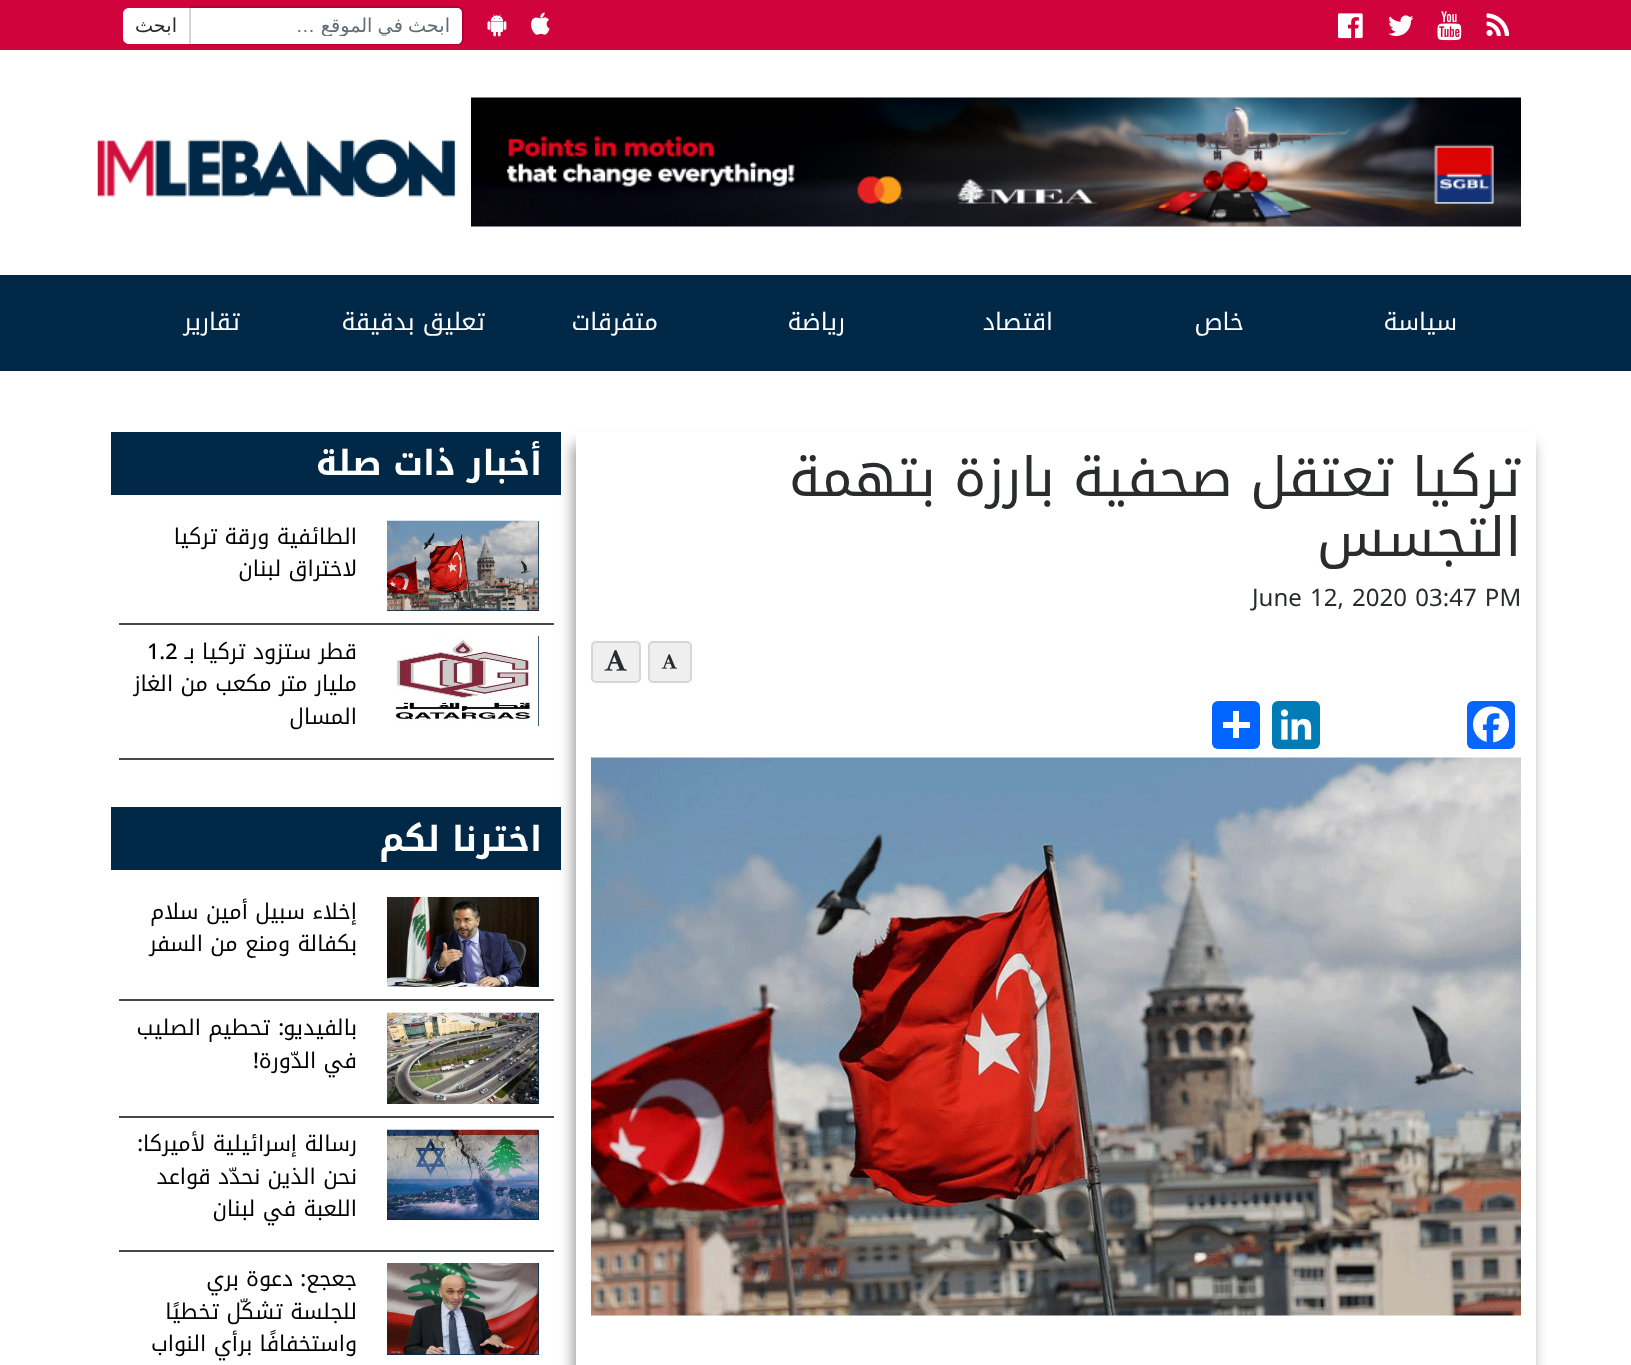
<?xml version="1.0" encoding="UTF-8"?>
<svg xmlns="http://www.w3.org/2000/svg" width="1631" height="1365">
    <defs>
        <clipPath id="clip1"><rect x="209" y="14" width="241" height="22"/></clipPath>
        <clipPath id="clip2"><path d="M 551 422 H 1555 V 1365 H 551 Z M 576 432 H 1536 V 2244 H 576 Z" clip-rule="evenodd"/></clipPath>
        <filter id="blur1" x="-50%" y="-200%" width="200%" height="500%"><feGaussianBlur stdDeviation="7"/></filter>
    </defs>
    <rect width="100%" height="100%" fill="#FFFFFF"/>
    <rect x="0" y="0" width="1631" height="50" fill="#D0033C"/>
    <image x="1486" y="13" width="24" height="23" href="img_01.png"/>
    <image x="1437" y="11" width="25" height="30" href="img_02.png"/>
    <image x="1388" y="15" width="26" height="21" href="img_03.png"/>
    <image x="1338" y="13" width="25" height="26" href="img_04.png"/>
    <image x="531" y="12" width="19" height="23" href="img_05.png"/>
    <image x="487" y="14" width="20" height="23" href="img_06.png"/>
    <path d="M 191 8 H 457 C 460 8 462 10 462 13 V 39 C 462 42 460 44 457 44 H 191 Z" fill="#FFFFFF"/>
    <path d="M 190 6 H 458 C 461 6 464 9 464 12 V 39 C 464 42 461 45 458 45 H 190 Z M 190 8 H 458 C 460 8 462 10 462 12 V 39 C 462 41 460 44 458 44 H 190 Z" fill="#000000" fill-opacity="0.15" fill-rule="evenodd"/>
    <g clip-path="url(#clip1)">
        <text x="450" y="32" word-spacing="-1" font-family="DejaVu Sans" font-size="19.25" direction="rtl" fill="#636C72">ابحث في الموقع</text>
    </g>
    <text x="315" y="32" font-family="Liberation Sans" font-size="19.25" direction="rtl" fill="#636C72">…</text>
    <path d="M 129 8 H 191 V 44 H 129 C 125.5 44 123 41.5 123 38 V 14 C 123 10.5 125.5 8 129 8 Z" fill="#FFFFFF"/>
    <rect x="189" y="8" width="2" height="36" fill="#D6D6D6"/>
    <text x="177" y="32" font-family="DejaVu Sans" font-size="19.25" direction="rtl" fill="#292B2C">ابحث</text>
    <image x="471" y="97" width="1050" height="130" href="img_07.png"/>
    <image x="97" y="139" width="359" height="59" href="img_08.png"/>
    <rect x="0" y="275" width="1631" height="96" fill="#012847"/>
    <text x="1457" y="330" font-family="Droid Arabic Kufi" font-size="24" direction="rtl" fill="#FFFFFF">سياسة</text>
    <text x="1244" y="330" font-family="Droid Arabic Kufi" font-size="24" direction="rtl" fill="#FFFFFF">خاص</text>
    <text x="1053" y="330" font-family="Droid Arabic Kufi" font-size="24" direction="rtl" fill="#FFFFFF">اقتصاد</text>
    <text x="845" y="330" font-family="Droid Arabic Kufi" font-size="24" direction="rtl" fill="#FFFFFF">رياضة</text>
    <text x="658" y="330" font-family="Droid Arabic Kufi" font-size="24" direction="rtl" fill="#FFFFFF">متفرقات</text>
    <text x="485" y="330" font-family="Droid Arabic Kufi" font-size="24" direction="rtl" fill="#FFFFFF">تعليق بدقيقة</text>
    <text x="240" y="330" font-family="Droid Arabic Kufi" font-size="24" direction="rtl" fill="#FFFFFF">تقارير</text>
    <g clip-path="url(#clip2)">
        <rect x="573" y="444" width="960" height="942" fill="#000000" fill-opacity="0.4" filter="url(#blur1)"/>
    </g>
    <text font-family="Droid Arabic Kufi" font-size="54" direction="rtl" fill="#292B2C">
        <tspan x="1521" y="496">تركيا تعتقل صحفية بارزة بتهمة</tspan>
        <tspan x="1521" y="556">التجسس</tspan>
    </text>
    <text x="1252" y="606" word-spacing="2" font-family="Noto Sans" font-size="24" fill="#292B2C">June 12, 2020 03:47 PM</text>
    <rect x="649" y="642" width="42" height="40" rx="4" fill="#EFEFEF" stroke="#D6D6D6" stroke-width="2"/>
    <image x="661" y="654" width="17" height="15" href="img_09.png"/>
    <rect x="592" y="642" width="48" height="40" rx="4" fill="#EFEFEF" stroke="#D6D6D6" stroke-width="2"/>
    <image x="604" y="650" width="23" height="21" href="img_10.png"/>
    <rect x="1467" y="701" width="48" height="48" rx="6" fill="#0866FF"/>
    <image x="1473" y="706" width="36" height="37" href="img_11.png"/>
    <rect x="1272" y="701" width="48" height="48" rx="6" fill="#007BB5"/>
    <image x="1280" y="709" width="32" height="31" href="img_12.png"/>
    <rect x="1212" y="701" width="48" height="48" rx="6" fill="#0166FF"/>
    <rect x="1233" y="711" width="6" height="27" fill="#FFFFFF"/>
    <rect x="1223" y="722" width="27" height="6" fill="#FFFFFF"/>
    <image x="591" y="757" width="930" height="559" href="img_13.png"/>
    <rect x="111" y="432" width="450" height="63" fill="#012847"/>
    <text x="542" y="475" font-family="Droid Arabic Kufi" font-size="34.5" font-weight="700" direction="rtl" fill="#FFFFFF">أخبار ذات صلة</text>
    <rect x="119" y="623" width="435" height="2" fill="#464A4C"/>
    <rect x="387" y="521" width="152" height="90" fill="#012847"/>
    <image x="387" y="520" width="152" height="91" href="img_14.png"/>
    <text font-family="Droid Arabic Kufi" font-size="21.6" direction="rtl" fill="#000000">
        <tspan x="357" y="544">الطائفية ورقة تركيا</tspan>
        <tspan x="357" y="576">لاختراق لبنان</tspan>
    </text>
    <rect x="119" y="758" width="435" height="2" fill="#464A4C"/>
    <rect x="538" y="636" width="1" height="90" fill="#012847"/>
    <image x="387" y="636" width="152" height="90" href="img_15.png"/>
    <text x="357" y="659" font-family="Droid Arabic Kufi" font-size="21.6" direction="rtl" fill="#000000">قطر ستزود تركيا بـ</text>
    <text x="147" y="659" font-family="Noto Sans" font-size="21.6" font-weight="500" fill="#000000">1.2</text>
    <text font-family="Droid Arabic Kufi" font-size="21.6" direction="rtl" fill="#000000">
        <tspan x="357" y="691">مليار متر مكعب من الغاز</tspan>
        <tspan x="357" y="724">المسال</tspan>
    </text>
    <rect x="111" y="807" width="450" height="63" fill="#012847"/>
    <text x="542" y="851" font-family="Droid Arabic Kufi" font-size="34.5" font-weight="700" direction="rtl" fill="#FFFFFF">اخترنا لكم</text>
    <rect x="119" y="999" width="435" height="2" fill="#464A4C"/>
    <rect x="538" y="897" width="1" height="90" fill="#012847"/>
    <image x="387" y="897" width="152" height="90" href="img_16.png"/>
    <text font-family="Droid Arabic Kufi" font-size="21.6" direction="rtl" fill="#000000">
        <tspan x="357" y="919">إخلاء سبيل أمين سلام</tspan>
        <tspan x="357" y="951">بكفالة ومنع من السفر</tspan>
    </text>
    <rect x="119" y="1116" width="435" height="2" fill="#464A4C"/>
    <rect x="538" y="1013" width="1" height="91" fill="#012847"/>
    <image x="387" y="1012" width="152" height="92" href="img_17.png"/>
    <text x="357" y="1035" font-family="Droid Arabic Kufi" font-size="21.6" direction="rtl" fill="#000000">بالفيديو</text>
    <text x="284" y="1035" font-family="Noto Sans" font-size="21.6" font-weight="500" direction="rtl" fill="#000000">:</text>
    <text x="270" y="1035" font-family="Droid Arabic Kufi" font-size="21.6" direction="rtl" fill="#000000">تحطيم الصليب</text>
    <text x="357" y="1068" font-family="Droid Arabic Kufi" font-size="21.6" direction="rtl" fill="#000000">في الدّورة</text>
    <text x="259" y="1068" font-family="Noto Sans" font-size="21.6" font-weight="500" direction="rtl" fill="#000000">!</text>
    <rect x="119" y="1250" width="435" height="2" fill="#464A4C"/>
    <rect x="387" y="1130" width="152" height="90" fill="#012847"/>
    <image x="387" y="1129" width="152" height="91" href="img_18.png"/>
    <text x="357" y="1151" font-family="Droid Arabic Kufi" font-size="21.6" direction="rtl" fill="#000000">رسالة إسرائيلية لأميركا</text>
    <text x="143" y="1151" font-family="Noto Sans" font-size="21.6" font-weight="500" direction="rtl" fill="#000000">:</text>
    <text font-family="Droid Arabic Kufi" font-size="21.6" direction="rtl" fill="#000000">
        <tspan x="357" y="1184">نحن الذين نحدّد قواعد</tspan>
        <tspan x="357" y="1216">اللعبة في لبنان</tspan>
    </text>
    <rect x="387" y="1263" width="152" height="92" fill="#012847"/>
    <image x="387" y="1263" width="152" height="92" href="img_19.png"/>
    <text x="357" y="1286" font-family="Droid Arabic Kufi" font-size="21.6" direction="rtl" fill="#000000">جعجع</text>
    <text x="306" y="1286" font-family="Noto Sans" font-size="21.6" font-weight="500" direction="rtl" fill="#000000">:</text>
    <text x="293" y="1286" font-family="Droid Arabic Kufi" font-size="21.6" direction="rtl" fill="#000000">دعوة بري</text>
    <text font-family="Droid Arabic Kufi" font-size="21.6" direction="rtl" fill="#000000">
        <tspan x="357" y="1319">للجلسة تشكّل تخطيًا</tspan>
        <tspan x="357" y="1351">واستخفافًا برأي النواب</tspan>
    </text>
</svg>
